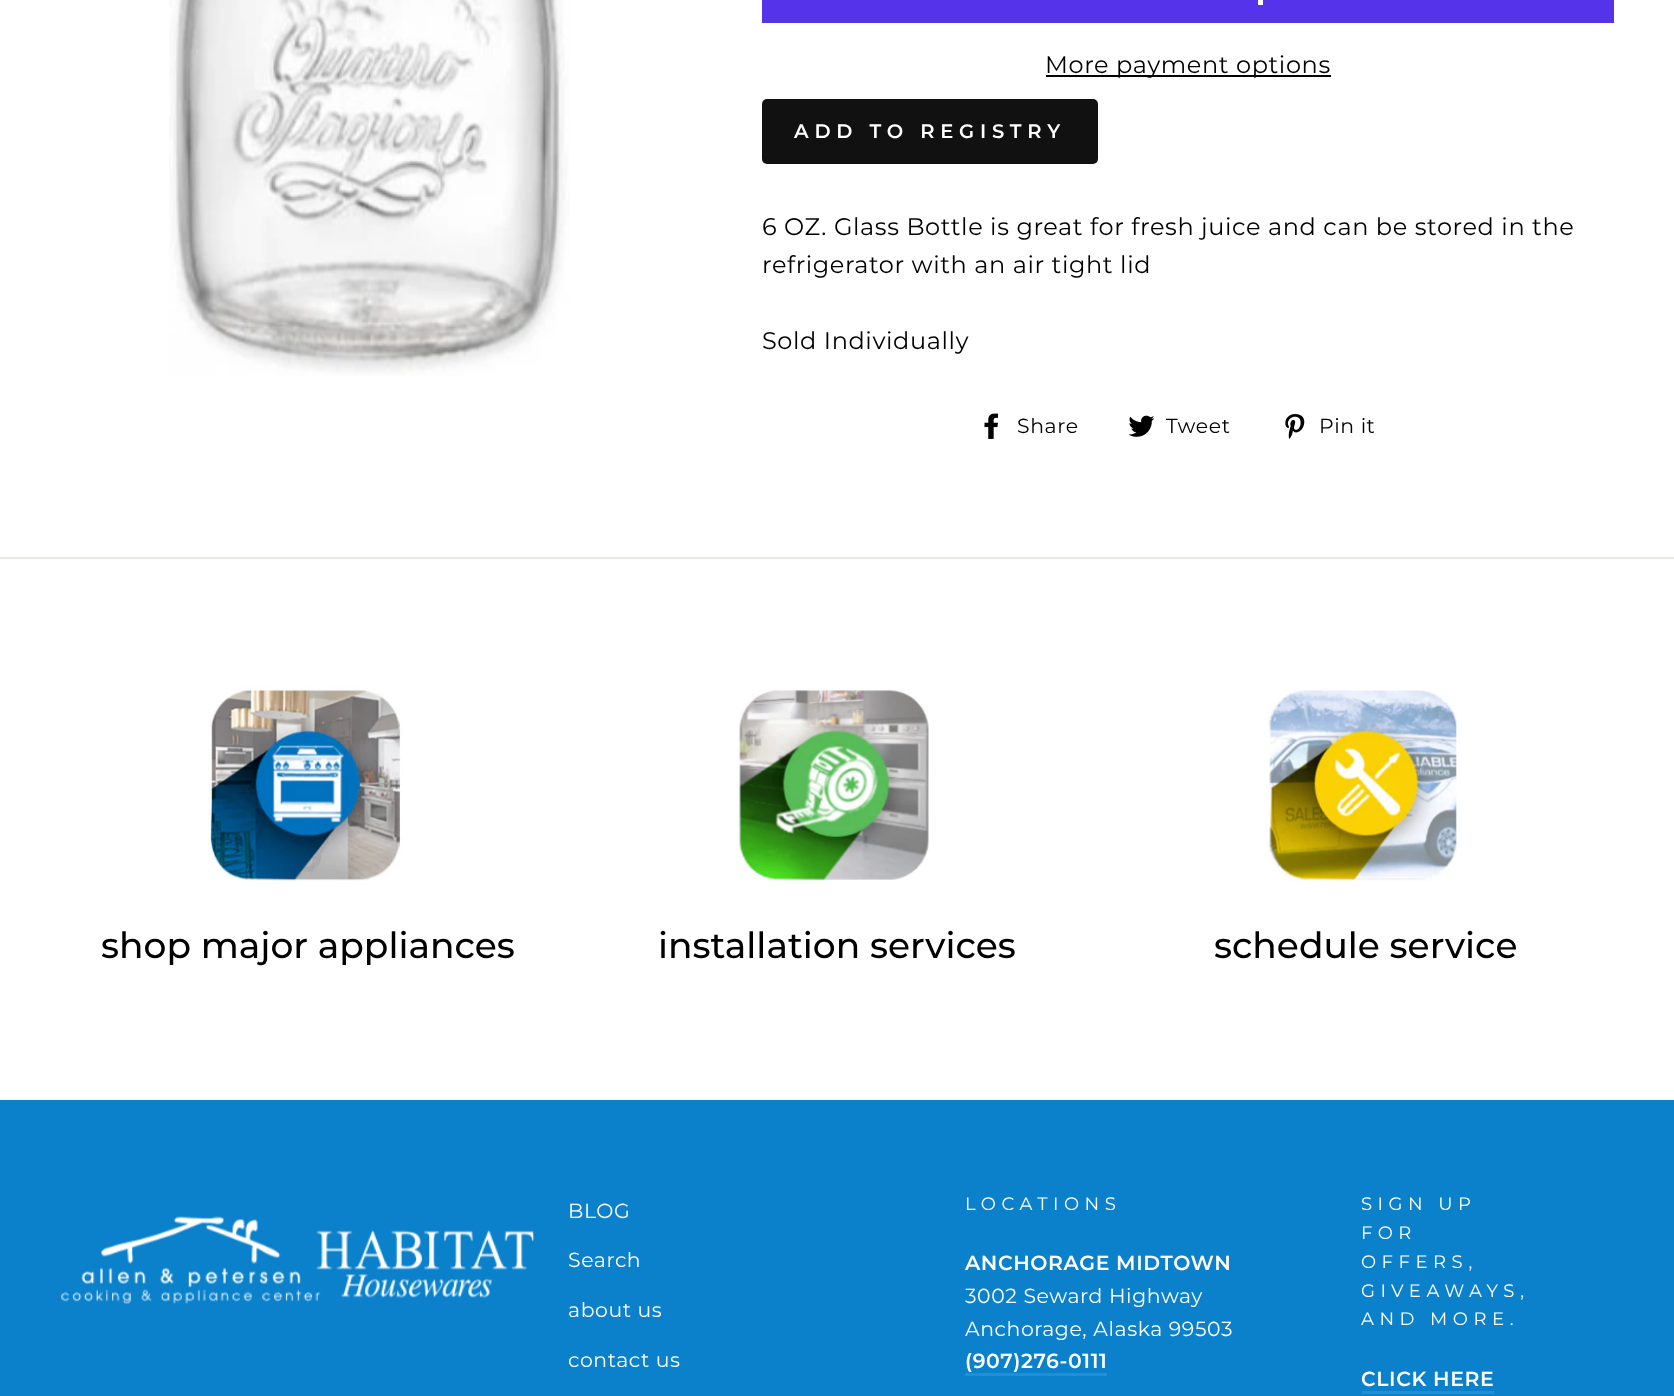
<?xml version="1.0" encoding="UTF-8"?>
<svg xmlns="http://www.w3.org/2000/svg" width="1674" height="1396">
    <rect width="100%" height="100%" fill="#FFFFFF"/>
    <image x="169" y="0" width="401" height="376" href="img_01.png"/>
    <rect x="762" y="0" width="852" height="23" fill="#5433EB"/>
    <rect x="1258" y="0" width="5" height="5" fill="#FFFFFF"/>
    <rect x="1046" y="75" width="285" height="2" fill="#000000"/>
    <text x="1045" y="73" font-family="Montserrat" font-size="24" letter-spacing="0.6" fill="#000000">More payment options</text>
    <rect x="762" y="99" width="336" height="65" rx="5" fill="#111111"/>
    <text x="794" y="138" font-family="Montserrat" font-size="19.5" font-weight="600" letter-spacing="5.8" fill="#FFFFFF">ADD TO REGISTRY</text>
    <text font-family="Montserrat" font-size="24" letter-spacing="0.6" fill="#000000">
        <tspan x="762" y="235">6 OZ. Glass Bottle is great for fresh juice and can be stored in the</tspan>
        <tspan x="762" y="273">refrigerator with an air tight lid</tspan>
    </text>
    <text x="762" y="349" font-family="Montserrat" font-size="24" letter-spacing="0.6" fill="#000000">Sold Individually</text>
    <image x="984" y="413" width="14" height="26" href="img_02.png"/>
    <text x="1017" y="433" font-family="Montserrat" font-size="20.4" letter-spacing="0.6" fill="#000000">Share</text>
    <image x="1128" y="415" width="27" height="22" href="img_03.png"/>
    <text x="1166" y="433" font-family="Montserrat" font-size="20.4" letter-spacing="0.6" fill="#000000">Tweet</text>
    <image x="1285" y="414" width="20" height="25" href="img_04.png"/>
    <text x="1319" y="433" font-family="Montserrat" font-size="20.4" letter-spacing="0.6" fill="#000000">Pin it</text>
    <rect x="0" y="557" width="1674" height="2" fill="#E8E8E1"/>
    <image x="208" y="686" width="195" height="195" href="img_05.png"/>
    <text x="101" y="958" font-family="Montserrat" font-size="36" font-weight="500" fill="#000000">shop major appliances</text>
    <image x="737" y="687" width="192" height="194" href="img_06.png"/>
    <text x="658" y="958" font-family="Montserrat" font-size="36" font-weight="500" fill="#000000">installation services</text>
    <image x="1265" y="690" width="192" height="192" href="img_07.png"/>
    <text x="1214" y="958" font-family="Montserrat" font-size="36" font-weight="500" fill="#000000">schedule service</text>
    <rect x="0" y="1100" width="1674" height="296" fill="#0B81CC"/>
    <image x="61" y="1216" width="474" height="89" href="img_08.png"/>
    <text x="568" y="1218" font-family="Montserrat" font-size="20.4" letter-spacing="0.6" fill="#FFFFFF">BLOG</text>
    <text x="568" y="1267" font-family="Montserrat" font-size="20.4" letter-spacing="0.6" fill="#FFFFFF">Search</text>
    <text x="568" y="1317" font-family="Montserrat" font-size="20.4" letter-spacing="0.6" fill="#FFFFFF">about us</text>
    <text x="568" y="1367" font-family="Montserrat" font-size="20.4" letter-spacing="0.6" fill="#FFFFFF">contact us</text>
    <text x="965" y="1210" font-family="Montserrat" font-size="18" letter-spacing="5.5" fill="#FFFFFF">LOCATIONS</text>
    <text x="965" y="1270" font-family="Montserrat" font-size="20.4" font-weight="600" letter-spacing="0.6" fill="#FFFFFF">ANCHORAGE MIDTOWN</text>
    <text font-family="Montserrat" font-size="20.4" letter-spacing="0.6" fill="#FFFFFF">
        <tspan x="965" y="1303">3002 Seward Highway</tspan>
        <tspan x="965" y="1336">Anchorage, Alaska 99503</tspan>
    </text>
    <text x="965" y="1368" font-family="Montserrat" font-size="20.4" font-weight="600" letter-spacing="0.6" fill="#FFFFFF">(907)276-0111</text>
    <rect x="965" y="1373" width="142" height="3" fill="#238ED1"/>
    <text font-family="Montserrat" font-size="18" letter-spacing="5.5" fill="#FFFFFF">
        <tspan x="1361" y="1210">SIGN UP</tspan>
        <tspan x="1361" y="1239">FOR</tspan>
        <tspan x="1361" y="1268">OFFERS,</tspan>
        <tspan x="1361" y="1297">GIVEAWAYS,</tspan>
        <tspan x="1361" y="1325">AND MORE.</tspan>
    </text>
    <text x="1361" y="1386" font-family="Montserrat" font-size="20.4" font-weight="600" letter-spacing="0.6" fill="#FFFFFF">CLICK HERE</text>
    <rect x="1362" y="1391" width="132" height="3" fill="#238ED1"/>
</svg>
